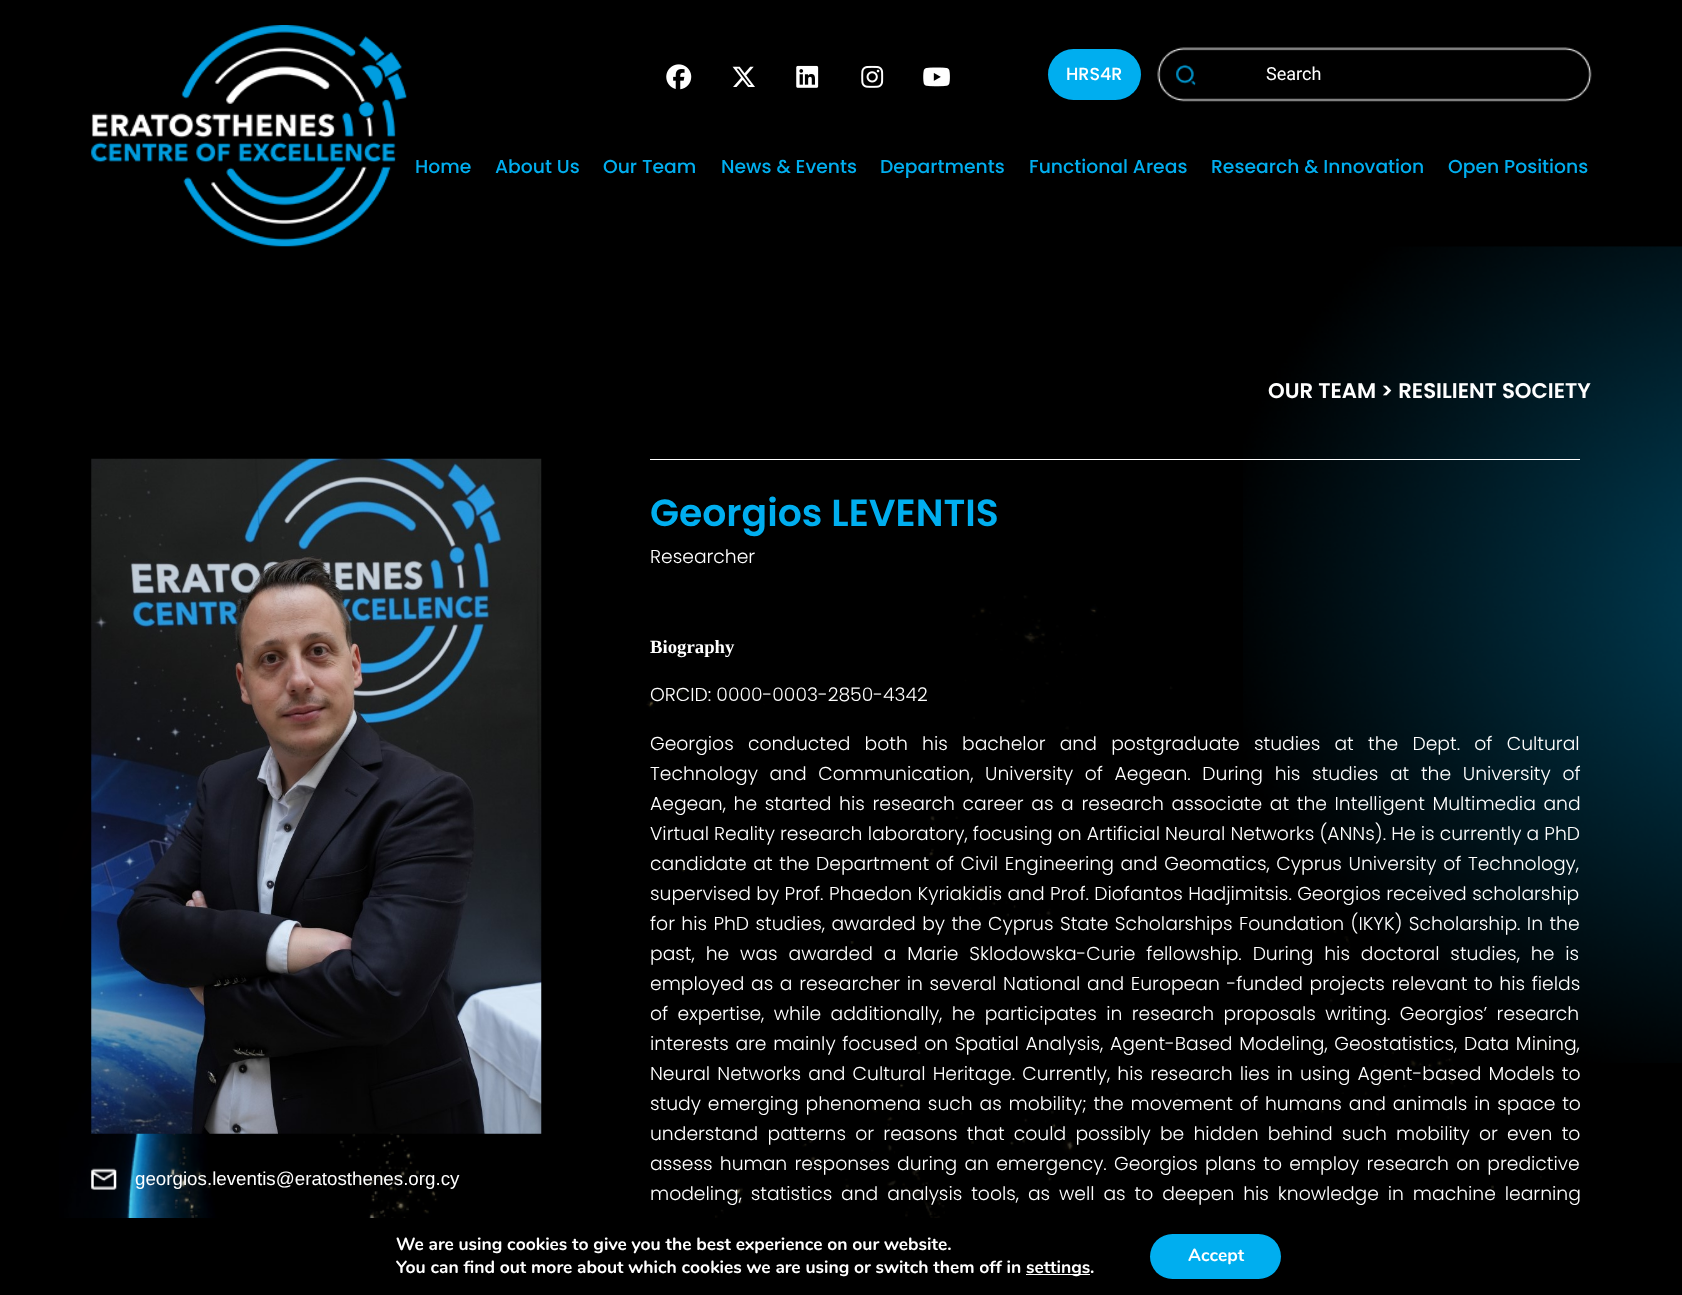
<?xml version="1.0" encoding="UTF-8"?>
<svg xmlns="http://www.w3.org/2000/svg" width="1682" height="1295">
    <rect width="100%" height="100%" fill="#000000"/>
    <image x="91" y="25" width="316" height="222" href="img_01.png"/>
    <image x="666" y="64" width="26" height="26" href="img_02.png"/>
    <image x="732" y="66" width="23" height="21" href="img_03.png"/>
    <image x="796" y="65" width="23" height="23" href="img_04.png"/>
    <image x="861" y="65" width="23" height="23" href="img_05.png"/>
    <image x="923" y="67" width="27" height="20" href="img_06.png"/>
    <rect x="1048" y="49" width="93" height="51" rx="25.5" fill="#00AEEF"/>
    <text x="1066" y="80" font-family="Poppins" font-size="17.5" font-weight="500" fill="#FFFFFF">HRS4R</text>
    <image x="1157" y="47" width="435" height="55" href="img_07.png"/>
    <text x="1266" y="80" font-family="Heebo" font-size="18" fill="#FFFFFF">Search</text>
    <text x="415" y="173" font-family="Poppins" font-size="18.75" font-weight="500" fill="#00AEEF">Home</text>
    <text x="495" y="173" font-family="Poppins" font-size="18.75" font-weight="500" fill="#00AEEF">About Us</text>
    <text x="603" y="173" font-family="Poppins" font-size="18.75" font-weight="500" fill="#00AEEF">Our Team</text>
    <text x="721" y="173" font-family="Poppins" font-size="18.75" font-weight="500" fill="#00AEEF">News &amp; Events</text>
    <text x="880" y="173" font-family="Poppins" font-size="18.75" font-weight="500" fill="#00AEEF">Departments</text>
    <text x="1029" y="173" font-family="Poppins" font-size="18.75" font-weight="500" fill="#00AEEF">Functional Areas</text>
    <text x="1211" y="173" font-family="Poppins" font-size="18.75" font-weight="500" fill="#00AEEF">Research &amp; Innovation</text>
    <text x="1448" y="173" font-family="Poppins" font-size="18.75" font-weight="500" fill="#00AEEF">Open Positions</text>
    <image x="59" y="595" width="1483" height="623" href="img_11.png"/>
    <image x="1243" y="246" width="439" height="817" href="img_08.png"/>
    <text x="1268" y="398" font-family="Poppins" font-size="21.25" font-weight="600" fill="#FFFFFF">OUR TEAM &gt; RESILIENT SOCIETY</text>
    <image x="91" y="458" width="451" height="676" href="img_09.png"/>
    <image x="91" y="1168" width="26" height="22" href="img_10.png"/>
    <text x="135" y="1185" font-family="Liberation Sans" font-size="18.75" fill="#FFFFFF">georgios.leventis@eratosthenes.org.cy</text>
    <rect x="650" y="459" width="930" height="1" fill="#FFFFFF"/>
    <text x="650" y="526" font-family="Poppins" font-size="37.75" font-weight="600" fill="#00AEEF">Georgios LEVENTIS</text>
    <text x="650" y="563" font-family="Poppins" font-size="18.75" font-weight="300" fill="#FFFFFF">Researcher</text>
    <text x="650" y="653" font-family="Liberation Serif" font-size="18.75" font-weight="700" fill="#FFFFFF">Biography</text>
    <text x="650" y="701" font-family="Poppins" font-size="18.75" font-weight="300" fill="#FFFFFF">ORCID: 0000-0003-2850-4342</text>
    <text font-family="Poppins" font-size="18.75" font-weight="300" fill="#FFFFFF">
        <tspan x="650" y="750" word-spacing="9.1">Georgios conducted both his bachelor and postgraduate studies at the Dept. of Cultural</tspan>
        <tspan x="650" y="780" word-spacing="6.5">Technology and Communication, University of Aegean. During his studies at the University of</tspan>
        <tspan x="650" y="810" word-spacing="2.5">Aegean, he started his research career as a research associate at the Intelligent Multimedia and</tspan>
        <tspan x="650" y="840">Virtual Reality research laboratory, focusing on Artificial Neural Networks (ANNs). He is currently a PhD</tspan>
        <tspan x="650" y="870" word-spacing="1.5">candidate at the Department of Civil Engineering and Geomatics, Cyprus University of Technology,</tspan>
        <tspan x="650" y="900" word-spacing="0.25">supervised by Prof. Phaedon Kyriakidis and Prof. Diofantos Hadjimitsis. Georgios received scholarship</tspan>
        <tspan x="650" y="930" word-spacing="1.25">for his PhD studies, awarded by the Cyprus State Scholarships Foundation (IKYK) Scholarship. In the</tspan>
        <tspan x="650" y="960" word-spacing="5.75">past, he was awarded a Marie Sklodowska-Curie fellowship. During his doctoral studies, he is</tspan>
        <tspan x="650" y="990" word-spacing="1.5">employed as a researcher in several National and European -funded projects relevant to his fields</tspan>
        <tspan x="650" y="1020" word-spacing="4.25">of expertise, while additionally, he participates in research proposals writing. Georgios’ research</tspan>
        <tspan x="650" y="1050" word-spacing="1.5">interests are mainly focused on Spatial Analysis, Agent-Based Modeling, Geostatistics, Data Mining,</tspan>
        <tspan x="650" y="1080" word-spacing="2">Neural Networks and Cultural Heritage. Currently, his research lies in using Agent-based Models to</tspan>
        <tspan x="650" y="1110" word-spacing="1.75">study emerging phenomena such as mobility; the movement of humans and animals in space to</tspan>
        <tspan x="650" y="1140" word-spacing="4.1">understand patterns or reasons that could possibly be hidden behind such mobility or even to</tspan>
        <tspan x="650" y="1170" word-spacing="2.1">assess human responses during an emergency. Georgios plans to employ research on predictive</tspan>
        <tspan x="650" y="1200" word-spacing="3.75">modeling, statistics and analysis tools, as well as to deepen his knowledge in machine learning</tspan>
    </text>
    <text font-family="Nunito" font-size="17.5" font-weight="700" fill="#FFFFFF">
        <tspan x="396" y="1250">We are using cookies to give you the best experience on our website.</tspan>
        <tspan x="396" y="1273">You can find out more about which cookies we are using or switch them off in</tspan>
    </text>
    <rect x="1026" y="1274" width="64" height="1" fill="#FFFFFF"/>
    <text x="1026" y="1273" font-family="Nunito" font-size="17.5" font-weight="700" fill="#FFFFFF">settings.</text>
    <rect x="1150" y="1234" width="131" height="45" rx="22.5" fill="#00AEEF"/>
    <text x="1188" y="1261" font-family="Nunito" font-size="17.5" font-weight="700" fill="#FFFFFF">Accept</text>
</svg>
